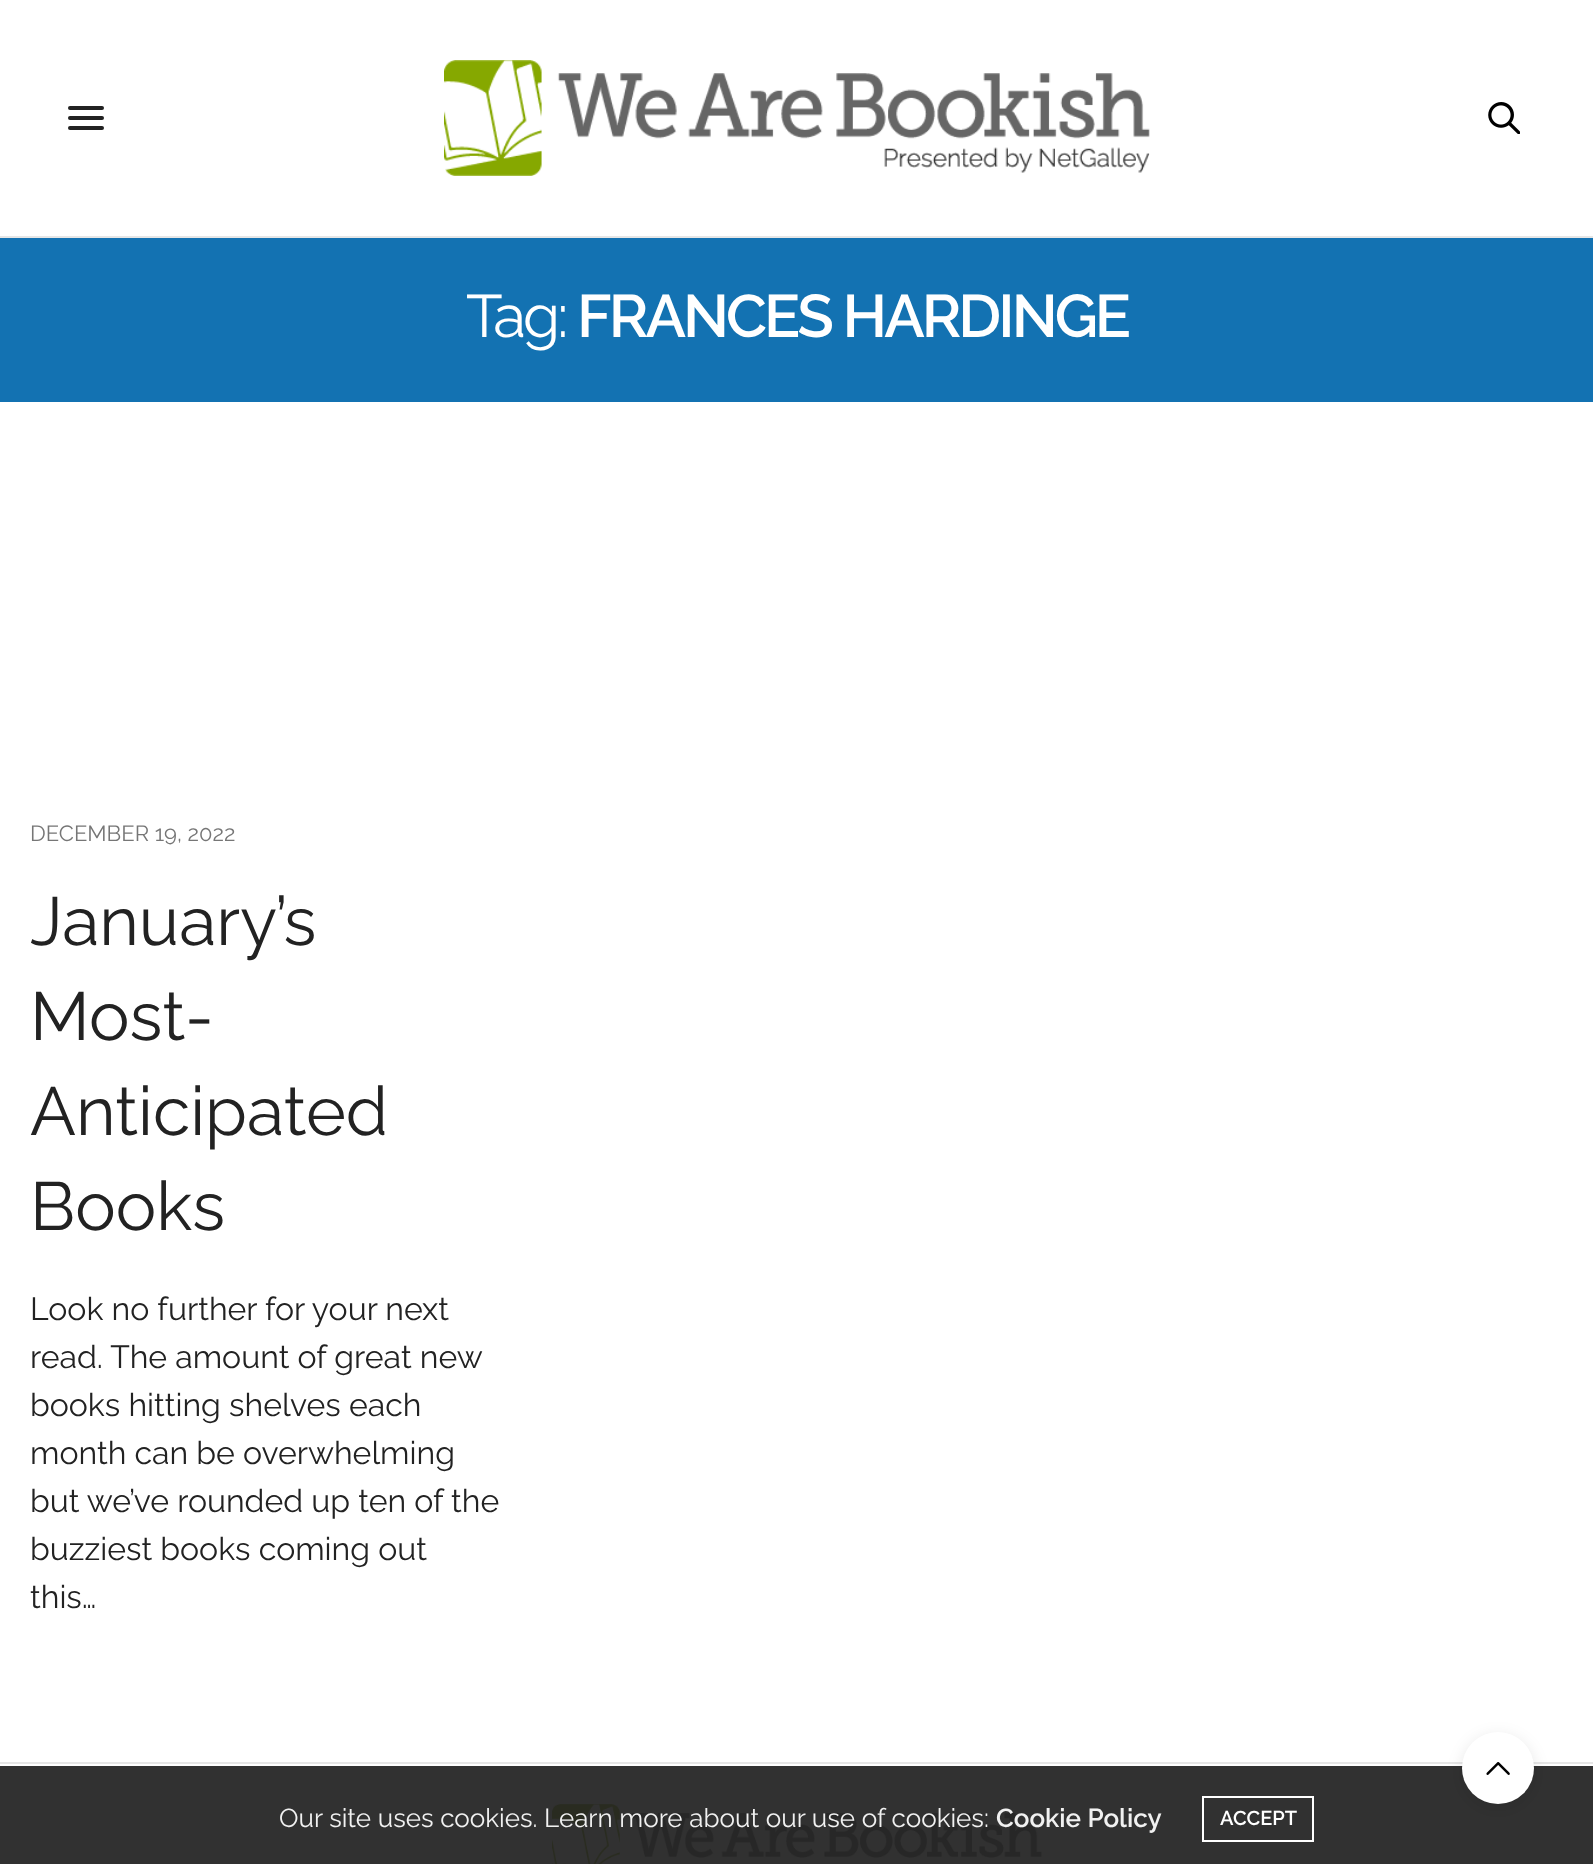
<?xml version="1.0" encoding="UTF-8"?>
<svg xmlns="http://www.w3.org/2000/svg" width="1593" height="1864">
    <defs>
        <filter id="blur1" x="-50%" y="-200%" width="200%" height="500%"><feGaussianBlur stdDeviation="8"/></filter>
    </defs>
    <rect width="100%" height="100%" fill="#FFFFFF"/>
    <rect x="0" y="1766" width="1593" height="98" fill="#313131"/>
    <rect x="0" y="236" width="1593" height="2" fill="#E6E6E6"/>
    <rect x="68" y="106" width="36" height="4" rx="2" fill="#222222"/>
    <rect x="68" y="116" width="36" height="4" rx="2" fill="#222222"/>
    <rect x="68" y="126" width="36" height="4" rx="2" fill="#222222"/>
    <image x="444" y="60" width="706" height="116" href="img_01.png"/>
    <image x="1488" y="102" width="32" height="32" href="img_02.png"/>
    <rect x="0" y="238" width="1593" height="164" fill="#1372B2"/>
    <text x="466" y="337" font-family="Raleway" font-size="60" letter-spacing="-3" fill="#FFFFFF">Tag:</text>
    <text x="577" y="337" font-family="Raleway" font-size="60" font-weight="600" letter-spacing="-3" fill="#FFFFFF">FRANCES HARDINGE</text>
    <text x="30" y="841" font-family="Raleway" font-size="22" fill="#767676">DECEMBER 19, 2022</text>
    <text font-family="Raleway" font-size="68" fill="#222222">
        <tspan x="30" y="945">January’s</tspan>
        <tspan x="30" y="1040">Most-</tspan>
        <tspan x="30" y="1135">Anticipated</tspan>
        <tspan x="30" y="1230">Books</tspan>
    </text>
    <text font-family="Raleway" font-size="32" fill="#222222">
        <tspan x="30" y="1320">Look no further for your next</tspan>
        <tspan x="30" y="1368">read. The amount of great new</tspan>
        <tspan x="30" y="1416">books hitting shelves each</tspan>
        <tspan x="30" y="1464">month can be overwhelming</tspan>
        <tspan x="30" y="1512">but we’ve rounded up ten of the</tspan>
        <tspan x="30" y="1560">buzziest books coming out</tspan>
        <tspan x="30" y="1608">this…</tspan>
    </text>
    <rect x="0" y="1762" width="1593" height="2" fill="#E6E6E6"/>
    <image x="552" y="1804" width="490" height="60" href="img_03.png"/>
    <text x="279" y="1827" font-family="Raleway" font-size="26" fill="#F1F1F1">Our site uses cookies. Learn more about our use of cookies:</text>
    <text x="996" y="1827" font-family="Raleway" font-size="26" font-weight="600" fill="#F1F1F1">Cookie Policy</text>
    <rect x="1203" y="1797" width="110" height="44" fill="none" stroke="#FFFFFF" stroke-width="2"/>
    <text x="1220" y="1825" font-family="Raleway" font-size="20" font-weight="600" fill="#FFFFFF">ACCEPT</text>
    <rect x="1462" y="1736" width="72" height="72" rx="36" fill="#000000" fill-opacity="0.1" filter="url(#blur1)"/>
    <circle cx="1498" cy="1768" r="36" fill="#FFFFFF"/>
    <image x="1486" y="1762" width="24" height="13" href="img_04.png"/>
</svg>
